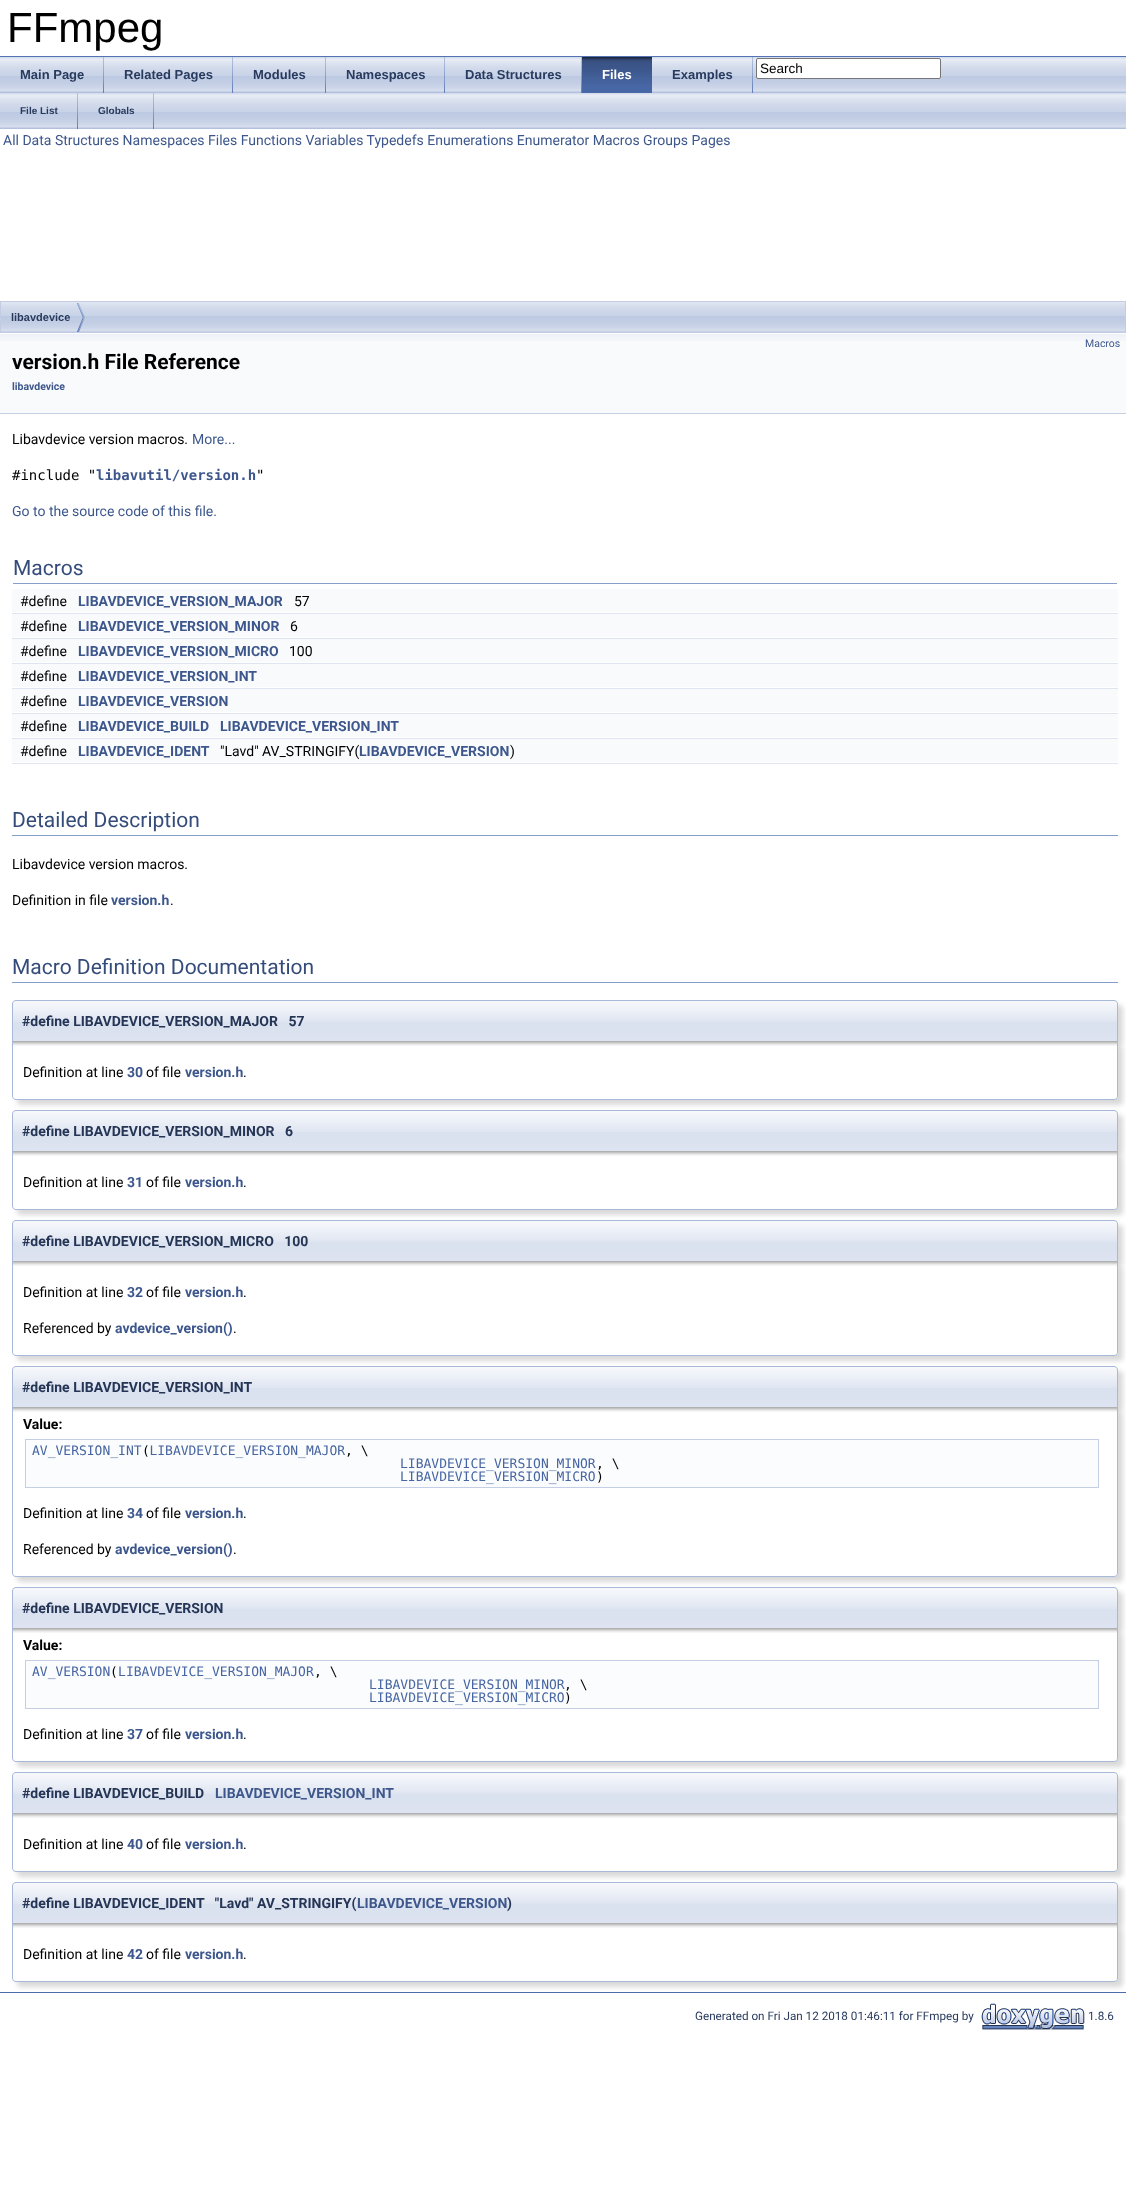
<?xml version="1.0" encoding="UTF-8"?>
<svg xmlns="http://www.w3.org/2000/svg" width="1126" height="2201">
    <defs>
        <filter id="blur1" x="-50%" y="-200%" width="200%" height="500%"><feGaussianBlur stdDeviation="2.5"/></filter>
    </defs>
    <rect width="100%" height="100%" fill="#FFFFFF"/>
    <rect x="0" y="56" width="1126" height="1" fill="#5373B4"/>
    <text x="7" y="42" font-family="Liberation Sans" font-size="42" fill="#000000">FFmpeg</text>
    <image x="0" y="57" width="1126" height="36" href="img_01.png"/>
    <image x="103" y="57" width="1" height="36" href="img_02.png"/>
    <text x="20" y="79" font-family="Liberation Sans" font-size="13" font-weight="700" fill="#283A5D">Main Page</text>
    <image x="232" y="57" width="1" height="36" href="img_02.png"/>
    <text x="124" y="79" font-family="Liberation Sans" font-size="13" font-weight="700" fill="#283A5D">Related Pages</text>
    <image x="325" y="57" width="1" height="36" href="img_02.png"/>
    <text x="253" y="79" font-family="Liberation Sans" font-size="13" font-weight="700" fill="#283A5D">Modules</text>
    <image x="444" y="57" width="1" height="36" href="img_02.png"/>
    <text x="346" y="79" font-family="Liberation Sans" font-size="13" font-weight="700" fill="#283A5D">Namespaces</text>
    <image x="581" y="57" width="1" height="36" href="img_02.png"/>
    <text x="465" y="79" font-family="Liberation Sans" font-size="13" font-weight="700" fill="#283A5D">Data Structures</text>
    <image x="582" y="57" width="70" height="36" href="img_03.png"/>
    <text x="602" y="79" font-family="Liberation Sans" font-size="13" font-weight="700" fill="#FFFFFF">Files</text>
    <image x="752" y="57" width="1" height="36" href="img_02.png"/>
    <text x="672" y="79" font-family="Liberation Sans" font-size="13" font-weight="700" fill="#283A5D">Examples</text>
    <rect x="756.5" y="58.5" width="184" height="20" rx="1.5" fill="#FFFFFF" stroke="#767676"/>
    <text x="760" y="73" font-family="Liberation Sans" font-size="13.5" fill="#000000">Search</text>
    <image x="0" y="93" width="1126" height="36" href="img_01.png"/>
    <image x="77" y="93" width="1" height="36" href="img_02.png"/>
    <text x="20" y="114" font-family="Liberation Sans" font-size="10" font-weight="700" fill="#283A5D">File List</text>
    <image x="153" y="93" width="1" height="36" href="img_02.png"/>
    <text x="98" y="114" font-family="Liberation Sans" font-size="10" font-weight="700" fill="#283A5D">Globals</text>
    <text x="3" y="145" font-family="Roboto" font-size="14" fill="#3D578C">All Data Structures Namespaces Files Functions Variables Typedefs Enumerations Enumerator Macros Groups Pages</text>
    <image x="1" y="302" width="1124" height="30" href="img_04.png"/>
    <rect x="0.5" y="301.5" width="1125" height="31" fill="none" stroke="#C2CDE4"/>
    <image x="77" y="303" width="8" height="29" href="img_05.png"/>
    <text x="11" y="321" font-family="Liberation Sans" font-size="11" font-weight="700" fill="#283A5D">libavdevice</text>
    <rect x="0" y="341" width="1126" height="72" fill="#F9FAFC"/>
    <image x="0" y="333" width="1126" height="8" href="img_06.png"/>
    <rect x="0" y="413" width="1126" height="1" fill="#C4CFE5"/>
    <text x="1085" y="347" font-family="Roboto" font-size="10.5" fill="#3D578C">Macros</text>
    <text x="12" y="369" font-family="Roboto" font-size="21" font-weight="700" fill="#000000">version.h File Reference</text>
    <text x="12" y="390" font-family="Roboto" font-size="10.5" font-weight="700" fill="#3D578C">libavdevice</text>
    <text x="12" y="444" font-family="Roboto" font-size="14" fill="#000000">Libavdevice version macros.</text>
    <text x="192" y="444" font-family="Roboto" font-size="14" fill="#3D578C">More...</text>
    <text x="12" y="480" font-family="DejaVu Sans Mono" font-size="14" fill="#000000">#include "</text>
    <text x="96" y="480" font-family="DejaVu Sans Mono" font-size="14" font-weight="700" fill="#3D578C">libavutil/version.h</text>
    <text x="256" y="480" font-family="DejaVu Sans Mono" font-size="14" fill="#000000">"</text>
    <text x="12" y="516" font-family="Roboto" font-size="14" fill="#3D578C">Go to the source code of this file.</text>
    <rect x="13" y="583" width="1104" height="1" fill="#879ECB"/>
    <text x="13" y="575" font-family="Roboto" font-size="21" fill="#354C7B">Macros</text>
    <rect x="12" y="589" width="1106" height="23" fill="#F9FAFC"/>
    <text x="20" y="606" font-family="Roboto" font-size="14" fill="#000000">#define</text>
    <text x="78" y="606" font-family="Roboto" font-size="14" font-weight="700" fill="#3D578C">LIBAVDEVICE_VERSION_MAJOR</text>
    <text x="294" y="606" font-family="Roboto" font-size="14" fill="#000000">57</text>
    <rect x="12" y="613" width="1106" height="1" fill="#DEE4F0"/>
    <rect x="12" y="614" width="1106" height="23" fill="#F9FAFC"/>
    <text x="20" y="631" font-family="Roboto" font-size="14" fill="#000000">#define</text>
    <text x="78" y="631" font-family="Roboto" font-size="14" font-weight="700" fill="#3D578C">LIBAVDEVICE_VERSION_MINOR</text>
    <text x="290" y="631" font-family="Roboto" font-size="14" fill="#000000">6</text>
    <rect x="12" y="638" width="1106" height="1" fill="#DEE4F0"/>
    <rect x="12" y="639" width="1106" height="23" fill="#F9FAFC"/>
    <text x="20" y="656" font-family="Roboto" font-size="14" fill="#000000">#define</text>
    <text x="78" y="656" font-family="Roboto" font-size="14" font-weight="700" fill="#3D578C">LIBAVDEVICE_VERSION_MICRO</text>
    <text x="289" y="656" font-family="Roboto" font-size="14" fill="#000000">100</text>
    <rect x="12" y="663" width="1106" height="1" fill="#DEE4F0"/>
    <rect x="12" y="664" width="1106" height="23" fill="#F9FAFC"/>
    <text x="20" y="681" font-family="Roboto" font-size="14" fill="#000000">#define</text>
    <text x="78" y="681" font-family="Roboto" font-size="14" font-weight="700" fill="#3D578C">LIBAVDEVICE_VERSION_INT</text>
    <rect x="12" y="688" width="1106" height="1" fill="#DEE4F0"/>
    <rect x="12" y="689" width="1106" height="23" fill="#F9FAFC"/>
    <text x="20" y="706" font-family="Roboto" font-size="14" fill="#000000">#define</text>
    <text x="78" y="706" font-family="Roboto" font-size="14" font-weight="700" fill="#3D578C">LIBAVDEVICE_VERSION</text>
    <rect x="12" y="713" width="1106" height="1" fill="#DEE4F0"/>
    <rect x="12" y="714" width="1106" height="23" fill="#F9FAFC"/>
    <text x="20" y="731" font-family="Roboto" font-size="14" fill="#000000">#define</text>
    <text x="78" y="731" font-family="Roboto" font-size="14" font-weight="700" fill="#3D578C">LIBAVDEVICE_BUILD</text>
    <text x="220" y="731" font-family="Roboto" font-size="14" font-weight="700" fill="#3D578C">LIBAVDEVICE_VERSION_INT</text>
    <rect x="12" y="738" width="1106" height="1" fill="#DEE4F0"/>
    <rect x="12" y="739" width="1106" height="23" fill="#F9FAFC"/>
    <text x="20" y="756" font-family="Roboto" font-size="14" fill="#000000">#define</text>
    <text x="78" y="756" font-family="Roboto" font-size="14" font-weight="700" fill="#3D578C">LIBAVDEVICE_IDENT</text>
    <text x="220" y="756" font-family="Roboto" font-size="14" fill="#000000">"Lavd" AV_STRINGIFY(</text>
    <text x="359" y="756" font-family="Roboto" font-size="14" font-weight="700" fill="#3D578C">LIBAVDEVICE_VERSION</text>
    <text x="510" y="756" font-family="Roboto" font-size="14" fill="#000000">)</text>
    <rect x="12" y="763" width="1106" height="1" fill="#DEE4F0"/>
    <rect x="12" y="835" width="1106" height="1" fill="#879ECB"/>
    <text x="12" y="827" font-family="Roboto" font-size="21" fill="#354C7B">Detailed Description</text>
    <text x="12" y="869" font-family="Roboto" font-size="14" fill="#000000">Libavdevice version macros.</text>
    <text x="12" y="905" font-family="Roboto" font-size="14" fill="#000000">Definition in file</text>
    <text x="111" y="905" font-family="Roboto" font-size="14" font-weight="700" fill="#3D578C">version.h</text>
    <text x="170" y="905" font-family="Roboto" font-size="14" fill="#000000">.</text>
    <rect x="12" y="982" width="1106" height="1" fill="#879ECB"/>
    <text x="12" y="974" font-family="Roboto" font-size="21" fill="#354C7B">Macro Definition Documentation</text>
    <rect x="17" y="1005" width="1106" height="41" rx="4" fill="#000000" fill-opacity="0.15" filter="url(#blur1)"/>
    <image x="12" y="1001" width="1106" height="40" href="img_07.png"/>
    <path d="M 16 1000 H 1114 C 1116 1000 1118 1002 1118 1004 V 1041 H 12 V 1004 C 12 1002 14 1000 16 1000 Z M 16 1001 H 1114 C 1116 1001 1117 1002 1117 1004 V 1041 H 13 V 1004 C 13 1002 14 1001 16 1001 Z" fill="#A8B8D9" fill-rule="evenodd"/>
    <text x="22" y="1026" font-family="Roboto" font-size="14" font-weight="700" fill="#253555" xml:space="preserve">#define LIBAVDEVICE_VERSION_MAJOR   57</text>
    <rect x="17" y="1046" width="1106" height="59" rx="4" fill="#000000" fill-opacity="0.15" filter="url(#blur1)"/>
    <path d="M 12 1041 H 1118 V 1096 C 1118 1098 1116 1100 1114 1100 H 16 C 14 1100 12 1098 12 1096 Z" fill="#FFFFFF"/>
    <image x="13" y="1041" width="1104" height="5" href="img_08.png"/>
    <path d="M 12 1041 H 1118 V 1096 C 1118 1098 1116 1100 1114 1100 H 16 C 14 1100 12 1098 12 1096 Z M 13 1041 H 1117 V 1096 C 1117 1098 1116 1099 1114 1099 H 16 C 14 1099 13 1098 13 1096 Z" fill="#A8B8D9" fill-rule="evenodd"/>
    <text x="23" y="1077" font-family="Roboto" font-size="14" fill="#000000">Definition at line</text>
    <text x="127" y="1077" font-family="Roboto" font-size="14" font-weight="700" fill="#3D578C">30</text>
    <text x="146" y="1077" font-family="Roboto" font-size="14" fill="#000000">of file</text>
    <text x="185" y="1077" font-family="Roboto" font-size="14" font-weight="700" fill="#3D578C">version.h</text>
    <text x="243" y="1077" font-family="Roboto" font-size="14" fill="#000000">.</text>
    <rect x="17" y="1115" width="1106" height="41" rx="4" fill="#000000" fill-opacity="0.15" filter="url(#blur1)"/>
    <image x="12" y="1111" width="1106" height="40" href="img_09.png"/>
    <path d="M 16 1110 H 1114 C 1116 1110 1118 1112 1118 1114 V 1151 H 12 V 1114 C 12 1112 14 1110 16 1110 Z M 16 1111 H 1114 C 1116 1111 1117 1112 1117 1114 V 1151 H 13 V 1114 C 13 1112 14 1111 16 1111 Z" fill="#A8B8D9" fill-rule="evenodd"/>
    <text x="22" y="1136" font-family="Roboto" font-size="14" font-weight="700" fill="#253555" xml:space="preserve">#define LIBAVDEVICE_VERSION_MINOR   6</text>
    <rect x="17" y="1156" width="1106" height="59" rx="4" fill="#000000" fill-opacity="0.15" filter="url(#blur1)"/>
    <path d="M 12 1151 H 1118 V 1206 C 1118 1208 1116 1210 1114 1210 H 16 C 14 1210 12 1208 12 1206 Z" fill="#FFFFFF"/>
    <image x="13" y="1151" width="1104" height="5" href="img_08.png"/>
    <path d="M 12 1151 H 1118 V 1206 C 1118 1208 1116 1210 1114 1210 H 16 C 14 1210 12 1208 12 1206 Z M 13 1151 H 1117 V 1206 C 1117 1208 1116 1209 1114 1209 H 16 C 14 1209 13 1208 13 1206 Z" fill="#A8B8D9" fill-rule="evenodd"/>
    <text x="23" y="1187" font-family="Roboto" font-size="14" fill="#000000">Definition at line</text>
    <text x="127" y="1187" font-family="Roboto" font-size="14" font-weight="700" fill="#3D578C">31</text>
    <text x="146" y="1187" font-family="Roboto" font-size="14" fill="#000000">of file</text>
    <text x="185" y="1187" font-family="Roboto" font-size="14" font-weight="700" fill="#3D578C">version.h</text>
    <text x="243" y="1187" font-family="Roboto" font-size="14" fill="#000000">.</text>
    <rect x="17" y="1225" width="1106" height="41" rx="4" fill="#000000" fill-opacity="0.15" filter="url(#blur1)"/>
    <image x="12" y="1221" width="1106" height="40" href="img_09.png"/>
    <path d="M 16 1220 H 1114 C 1116 1220 1118 1222 1118 1224 V 1261 H 12 V 1224 C 12 1222 14 1220 16 1220 Z M 16 1221 H 1114 C 1116 1221 1117 1222 1117 1224 V 1261 H 13 V 1224 C 13 1222 14 1221 16 1221 Z" fill="#A8B8D9" fill-rule="evenodd"/>
    <text x="22" y="1246" font-family="Roboto" font-size="14" font-weight="700" fill="#253555" xml:space="preserve">#define LIBAVDEVICE_VERSION_MICRO   100</text>
    <rect x="17" y="1266" width="1106" height="95" rx="4" fill="#000000" fill-opacity="0.15" filter="url(#blur1)"/>
    <path d="M 12 1261 H 1118 V 1352 C 1118 1354 1116 1356 1114 1356 H 16 C 14 1356 12 1354 12 1352 Z" fill="#FFFFFF"/>
    <image x="13" y="1261" width="1104" height="5" href="img_08.png"/>
    <path d="M 12 1261 H 1118 V 1352 C 1118 1354 1116 1356 1114 1356 H 16 C 14 1356 12 1354 12 1352 Z M 13 1261 H 1117 V 1352 C 1117 1354 1116 1355 1114 1355 H 16 C 14 1355 13 1354 13 1352 Z" fill="#A8B8D9" fill-rule="evenodd"/>
    <text x="23" y="1297" font-family="Roboto" font-size="14" fill="#000000">Definition at line</text>
    <text x="127" y="1297" font-family="Roboto" font-size="14" font-weight="700" fill="#3D578C">32</text>
    <text x="146" y="1297" font-family="Roboto" font-size="14" fill="#000000">of file</text>
    <text x="185" y="1297" font-family="Roboto" font-size="14" font-weight="700" fill="#3D578C">version.h</text>
    <text x="243" y="1297" font-family="Roboto" font-size="14" fill="#000000">.</text>
    <text x="23" y="1333" font-family="Roboto" font-size="14" fill="#000000">Referenced by</text>
    <text x="115" y="1333" font-family="Roboto" font-size="14" font-weight="700" fill="#3D578C">avdevice_version()</text>
    <text x="233" y="1333" font-family="Roboto" font-size="14" fill="#000000">.</text>
    <rect x="17" y="1371" width="1106" height="41" rx="4" fill="#000000" fill-opacity="0.15" filter="url(#blur1)"/>
    <image x="12" y="1367" width="1106" height="40" href="img_09.png"/>
    <path d="M 16 1366 H 1114 C 1116 1366 1118 1368 1118 1370 V 1407 H 12 V 1370 C 12 1368 14 1366 16 1366 Z M 16 1367 H 1114 C 1116 1367 1117 1368 1117 1370 V 1407 H 13 V 1370 C 13 1368 14 1367 16 1367 Z" fill="#A8B8D9" fill-rule="evenodd"/>
    <text x="22" y="1392" font-family="Roboto" font-size="14" font-weight="700" fill="#253555">#define LIBAVDEVICE_VERSION_INT</text>
    <rect x="17" y="1412" width="1106" height="170" rx="4" fill="#000000" fill-opacity="0.15" filter="url(#blur1)"/>
    <path d="M 12 1407 H 1118 V 1573 C 1118 1575 1116 1577 1114 1577 H 16 C 14 1577 12 1575 12 1573 Z" fill="#FFFFFF"/>
    <image x="13" y="1407" width="1104" height="5" href="img_08.png"/>
    <path d="M 12 1407 H 1118 V 1573 C 1118 1575 1116 1577 1114 1577 H 16 C 14 1577 12 1575 12 1573 Z M 13 1407 H 1117 V 1573 C 1117 1575 1116 1576 1114 1576 H 16 C 14 1576 13 1575 13 1573 Z" fill="#A8B8D9" fill-rule="evenodd"/>
    <text x="23" y="1429" font-family="Roboto" font-size="14" font-weight="700" fill="#000000">Value:</text>
    <rect x="25.5" y="1439.5" width="1073" height="48" fill="#FBFCFD" stroke="#C4CFE5"/>
    <text x="32" y="1455" font-family="DejaVu Sans Mono" font-size="13" fill="#4665A2">AV_VERSION_INT LIBAVDEVICE_VERSION_MAJOR</text>
    <text x="142" y="1455" font-family="DejaVu Sans Mono" font-size="13" fill="#000000">(</text>
    <text x="345" y="1455" font-family="DejaVu Sans Mono" font-size="13" fill="#000000">, \</text>
    <text x="400" y="1468" font-family="DejaVu Sans Mono" font-size="13" fill="#4665A2">LIBAVDEVICE_VERSION_MINOR</text>
    <text x="596" y="1468" font-family="DejaVu Sans Mono" font-size="13" fill="#000000">, \</text>
    <text x="400" y="1481" font-family="DejaVu Sans Mono" font-size="13" fill="#4665A2">LIBAVDEVICE_VERSION_MICRO</text>
    <text x="596" y="1481" font-family="DejaVu Sans Mono" font-size="13" fill="#000000">)</text>
    <text x="23" y="1518" font-family="Roboto" font-size="14" fill="#000000">Definition at line</text>
    <text x="127" y="1518" font-family="Roboto" font-size="14" font-weight="700" fill="#3D578C">34</text>
    <text x="146" y="1518" font-family="Roboto" font-size="14" fill="#000000">of file</text>
    <text x="185" y="1518" font-family="Roboto" font-size="14" font-weight="700" fill="#3D578C">version.h</text>
    <text x="243" y="1518" font-family="Roboto" font-size="14" fill="#000000">.</text>
    <text x="23" y="1554" font-family="Roboto" font-size="14" fill="#000000">Referenced by</text>
    <text x="115" y="1554" font-family="Roboto" font-size="14" font-weight="700" fill="#3D578C">avdevice_version()</text>
    <text x="233" y="1554" font-family="Roboto" font-size="14" fill="#000000">.</text>
    <rect x="17" y="1592" width="1106" height="41" rx="4" fill="#000000" fill-opacity="0.15" filter="url(#blur1)"/>
    <image x="12" y="1588" width="1106" height="40" href="img_09.png"/>
    <path d="M 16 1587 H 1114 C 1116 1587 1118 1589 1118 1591 V 1628 H 12 V 1591 C 12 1589 14 1587 16 1587 Z M 16 1588 H 1114 C 1116 1588 1117 1589 1117 1591 V 1628 H 13 V 1591 C 13 1589 14 1588 16 1588 Z" fill="#A8B8D9" fill-rule="evenodd"/>
    <text x="22" y="1613" font-family="Roboto" font-size="14" font-weight="700" fill="#253555">#define LIBAVDEVICE_VERSION</text>
    <rect x="17" y="1633" width="1106" height="134" rx="4" fill="#000000" fill-opacity="0.15" filter="url(#blur1)"/>
    <path d="M 12 1628 H 1118 V 1758 C 1118 1760 1116 1762 1114 1762 H 16 C 14 1762 12 1760 12 1758 Z" fill="#FFFFFF"/>
    <image x="13" y="1628" width="1104" height="5" href="img_08.png"/>
    <path d="M 12 1628 H 1118 V 1758 C 1118 1760 1116 1762 1114 1762 H 16 C 14 1762 12 1760 12 1758 Z M 13 1628 H 1117 V 1758 C 1117 1760 1116 1761 1114 1761 H 16 C 14 1761 13 1760 13 1758 Z" fill="#A8B8D9" fill-rule="evenodd"/>
    <text x="23" y="1650" font-family="Roboto" font-size="14" font-weight="700" fill="#000000">Value:</text>
    <rect x="25.5" y="1660.5" width="1073" height="48" fill="#FBFCFD" stroke="#C4CFE5"/>
    <text x="32" y="1676" font-family="DejaVu Sans Mono" font-size="13" fill="#4665A2">AV_VERSION LIBAVDEVICE_VERSION_MAJOR</text>
    <text x="110" y="1676" font-family="DejaVu Sans Mono" font-size="13" fill="#000000">(</text>
    <text x="314" y="1676" font-family="DejaVu Sans Mono" font-size="13" fill="#000000">, \</text>
    <text x="369" y="1689" font-family="DejaVu Sans Mono" font-size="13" fill="#4665A2">LIBAVDEVICE_VERSION_MINOR</text>
    <text x="564" y="1689" font-family="DejaVu Sans Mono" font-size="13" fill="#000000">, \</text>
    <text x="369" y="1702" font-family="DejaVu Sans Mono" font-size="13" fill="#4665A2">LIBAVDEVICE_VERSION_MICRO</text>
    <text x="564" y="1702" font-family="DejaVu Sans Mono" font-size="13" fill="#000000">)</text>
    <text x="23" y="1739" font-family="Roboto" font-size="14" fill="#000000">Definition at line</text>
    <text x="127" y="1739" font-family="Roboto" font-size="14" font-weight="700" fill="#3D578C">37</text>
    <text x="146" y="1739" font-family="Roboto" font-size="14" fill="#000000">of file</text>
    <text x="185" y="1739" font-family="Roboto" font-size="14" font-weight="700" fill="#3D578C">version.h</text>
    <text x="243" y="1739" font-family="Roboto" font-size="14" fill="#000000">.</text>
    <rect x="17" y="1777" width="1106" height="41" rx="4" fill="#000000" fill-opacity="0.15" filter="url(#blur1)"/>
    <image x="12" y="1773" width="1106" height="40" href="img_09.png"/>
    <path d="M 16 1772 H 1114 C 1116 1772 1118 1774 1118 1776 V 1813 H 12 V 1776 C 12 1774 14 1772 16 1772 Z M 16 1773 H 1114 C 1116 1773 1117 1774 1117 1776 V 1813 H 13 V 1776 C 13 1774 14 1773 16 1773 Z" fill="#A8B8D9" fill-rule="evenodd"/>
    <text x="22" y="1798" font-family="Roboto" font-size="14" font-weight="700" fill="#253555">#define LIBAVDEVICE_BUILD</text>
    <text x="215" y="1798" font-family="Roboto" font-size="14" font-weight="700" fill="#3D578C">LIBAVDEVICE_VERSION_INT</text>
    <rect x="17" y="1818" width="1106" height="59" rx="4" fill="#000000" fill-opacity="0.15" filter="url(#blur1)"/>
    <path d="M 12 1813 H 1118 V 1868 C 1118 1870 1116 1872 1114 1872 H 16 C 14 1872 12 1870 12 1868 Z" fill="#FFFFFF"/>
    <image x="13" y="1813" width="1104" height="5" href="img_08.png"/>
    <path d="M 12 1813 H 1118 V 1868 C 1118 1870 1116 1872 1114 1872 H 16 C 14 1872 12 1870 12 1868 Z M 13 1813 H 1117 V 1868 C 1117 1870 1116 1871 1114 1871 H 16 C 14 1871 13 1870 13 1868 Z" fill="#A8B8D9" fill-rule="evenodd"/>
    <text x="23" y="1849" font-family="Roboto" font-size="14" fill="#000000">Definition at line</text>
    <text x="127" y="1849" font-family="Roboto" font-size="14" font-weight="700" fill="#3D578C">40</text>
    <text x="146" y="1849" font-family="Roboto" font-size="14" fill="#000000">of file</text>
    <text x="185" y="1849" font-family="Roboto" font-size="14" font-weight="700" fill="#3D578C">version.h</text>
    <text x="243" y="1849" font-family="Roboto" font-size="14" fill="#000000">.</text>
    <rect x="17" y="1887" width="1106" height="41" rx="4" fill="#000000" fill-opacity="0.15" filter="url(#blur1)"/>
    <image x="12" y="1883" width="1106" height="40" href="img_09.png"/>
    <path d="M 16 1882 H 1114 C 1116 1882 1118 1884 1118 1886 V 1923 H 12 V 1886 C 12 1884 14 1882 16 1882 Z M 16 1883 H 1114 C 1116 1883 1117 1884 1117 1886 V 1923 H 13 V 1886 C 13 1884 14 1883 16 1883 Z" fill="#A8B8D9" fill-rule="evenodd"/>
    <text x="22" y="1908" font-family="Roboto" font-size="14" font-weight="700" fill="#253555" xml:space="preserve">#define LIBAVDEVICE_IDENT   "Lavd" AV_STRINGIFY(</text>
    <text x="357" y="1908" font-family="Roboto" font-size="14" font-weight="700" fill="#3D578C">LIBAVDEVICE_VERSION</text>
    <text x="507" y="1908" font-family="Roboto" font-size="14" font-weight="700" fill="#253555">)</text>
    <rect x="17" y="1928" width="1106" height="59" rx="4" fill="#000000" fill-opacity="0.15" filter="url(#blur1)"/>
    <path d="M 12 1923 H 1118 V 1978 C 1118 1980 1116 1982 1114 1982 H 16 C 14 1982 12 1980 12 1978 Z" fill="#FFFFFF"/>
    <image x="13" y="1923" width="1104" height="5" href="img_08.png"/>
    <path d="M 12 1923 H 1118 V 1978 C 1118 1980 1116 1982 1114 1982 H 16 C 14 1982 12 1980 12 1978 Z M 13 1923 H 1117 V 1978 C 1117 1980 1116 1981 1114 1981 H 16 C 14 1981 13 1980 13 1978 Z" fill="#A8B8D9" fill-rule="evenodd"/>
    <text x="23" y="1959" font-family="Roboto" font-size="14" fill="#000000">Definition at line</text>
    <text x="127" y="1959" font-family="Roboto" font-size="14" font-weight="700" fill="#3D578C">42</text>
    <text x="146" y="1959" font-family="Roboto" font-size="14" fill="#000000">of file</text>
    <text x="185" y="1959" font-family="Roboto" font-size="14" font-weight="700" fill="#3D578C">version.h</text>
    <text x="243" y="1959" font-family="Roboto" font-size="14" fill="#000000">.</text>
    <rect x="0" y="1992" width="1126" height="1" fill="#4A6AAA"/>
    <text x="695" y="2020" font-family="Roboto" font-size="11.7" fill="#283A5D">Generated on Fri Jan 12 2018 01:46:11 for FFmpeg by</text>
    <image x="981" y="2003" width="104" height="27" href="img_10.png"/>
    <text x="1088" y="2020" font-family="Roboto" font-size="11.7" fill="#283A5D">1.8.6</text>
</svg>
